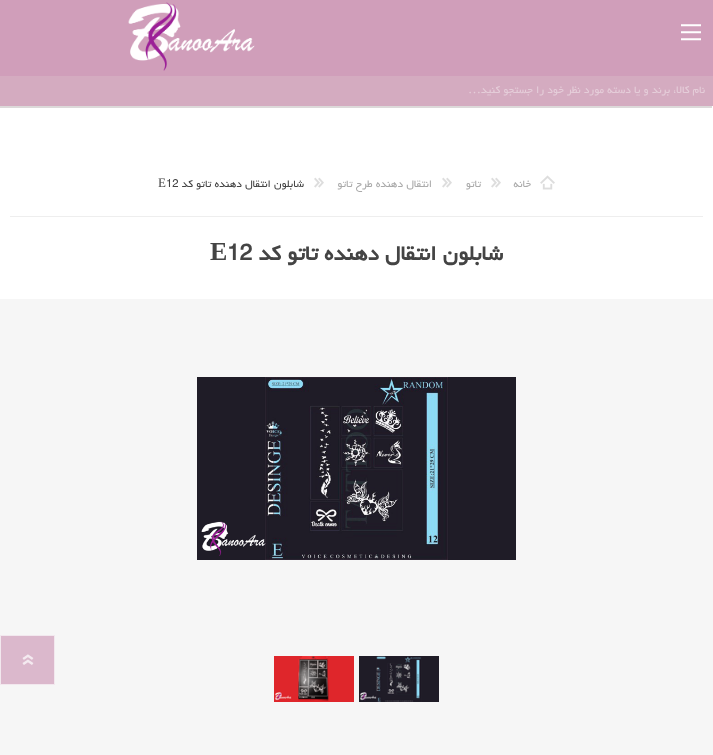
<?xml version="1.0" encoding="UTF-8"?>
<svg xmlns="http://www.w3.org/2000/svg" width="713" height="755">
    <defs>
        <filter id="blur1" x="-50%" y="-200%" width="200%" height="500%"><feGaussianBlur stdDeviation="0.5"/></filter>
    </defs>
    <rect width="100%" height="100%" fill="#FFFFFF"/>
    <rect x="0" y="0" width="713" height="76" fill="#D09EBA"/>
    <image x="681" y="24" width="20" height="17" href="img_01.png"/>
    <image x="128" y="2" width="127" height="69" href="img_02.png"/>
    <rect x="-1" y="78" width="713" height="30" fill="#8A8282" fill-opacity="0.3" filter="url(#blur1)"/>
    <rect x="0" y="76" width="713" height="30" fill="#D4ABC0"/>
    <text x="705" y="93" font-family="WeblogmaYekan" font-size="13" direction="rtl" fill="#E5CDD9">نام کالا، برند و یا دسته مورد نظر خود را جستجو کنید</text>
    <text x="481" y="93" font-family="Liberation Serif" font-size="13" direction="rtl" fill="#E5CDD9">…</text>
    <rect x="10" y="216" width="693" height="1" fill="#EEEEEE"/>
    <image x="540" y="175" width="15" height="15" href="img_03.png"/>
    <text x="531" y="187" font-family="WeblogmaYekan" font-size="13" direction="rtl" fill="#AAAAAA">خانه</text>
    <image x="491" y="177" width="10" height="11" href="img_04.png"/>
    <text x="481" y="187" font-family="WeblogmaYekan" font-size="13" direction="rtl" fill="#AAAAAA">تاتو</text>
    <image x="442" y="177" width="10" height="11" href="img_04.png"/>
    <text x="432" y="187" font-family="WeblogmaYekan" font-size="13" direction="rtl" fill="#AAAAAA">انتقال دهنده طرح تاتو</text>
    <image x="314" y="177" width="10" height="11" href="img_04.png"/>
    <text x="304" y="187" font-family="WeblogmaYekan" font-size="13" direction="rtl" fill="#444444">شابلون انتقال دهنده تاتو کد</text>
    <text x="166" y="187" font-family="WeblogmaYekan" font-size="13" fill="#444444">12</text>
    <text x="158" y="187" font-family="Liberation Serif" font-size="13" fill="#444444">E</text>
    <text x="503" y="260" font-family="WeblogmaYekan" font-size="26" font-weight="700" direction="rtl" fill="#444444">شابلون انتقال دهنده تاتو کد</text>
    <text x="227" y="260" font-family="WeblogmaYekan" font-size="26" font-weight="700" fill="#444444">12</text>
    <text x="210" y="260" font-family="Liberation Serif" font-size="26" font-weight="700" fill="#444444">E</text>
    <rect x="0" y="299" width="713" height="456" fill="#F6F6F6"/>
    <image x="197" y="377" width="319" height="183" href="img_05.png"/>
    <image x="359" y="656" width="80" height="46" href="img_06.png"/>
    <image x="274" y="656" width="80" height="46" href="img_07.png"/>
    <rect x="0.5" y="635.5" width="54" height="49" fill="#DBB8CC" stroke="#F2E8EE"/>
    <image x="22" y="654" width="12" height="11" href="img_08.png"/>
</svg>
